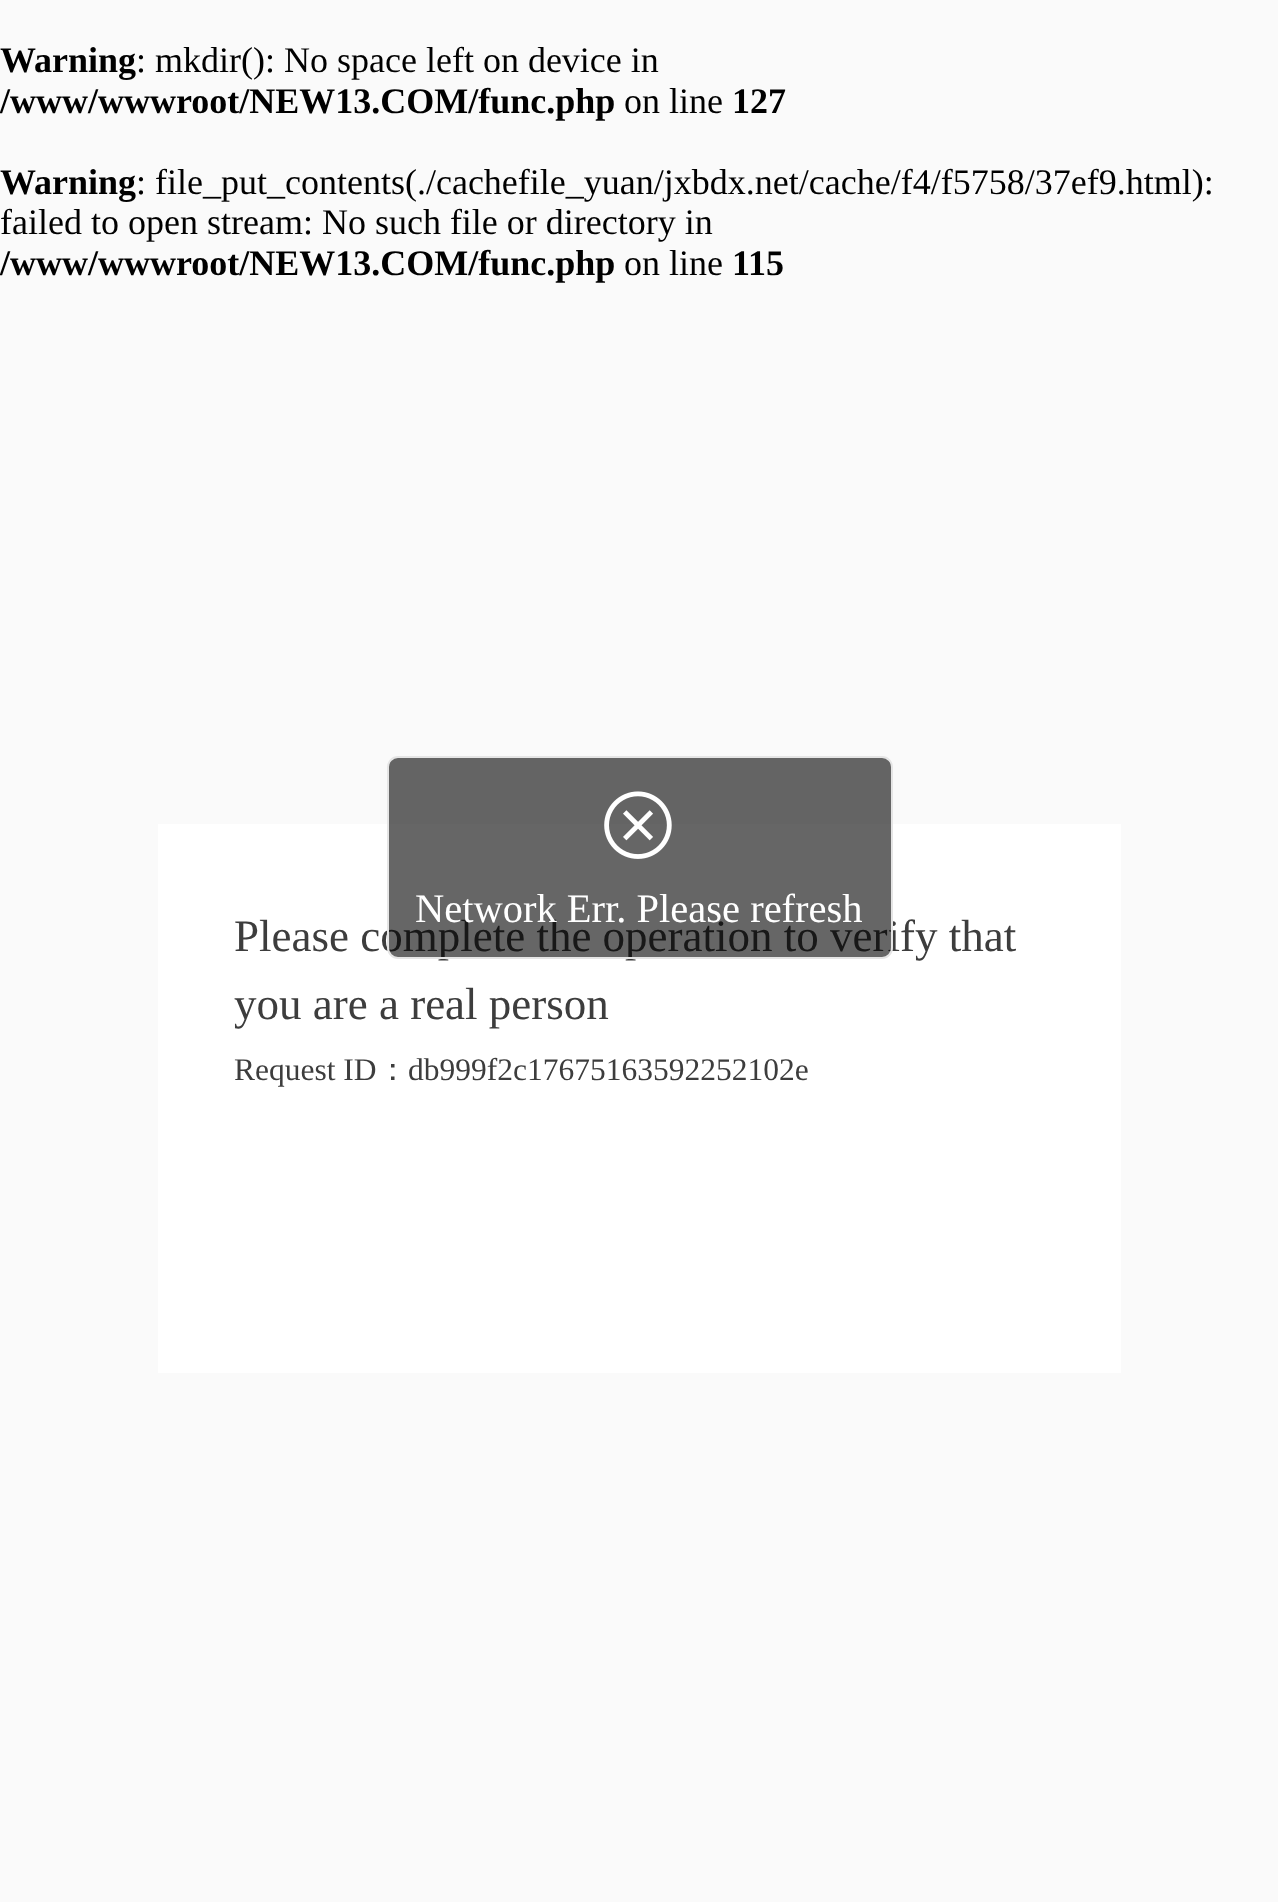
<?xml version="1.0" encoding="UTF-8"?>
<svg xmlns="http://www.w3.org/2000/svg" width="1278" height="1902">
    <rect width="100%" height="100%" fill="#FAFAFA"/>
    <text x="0" y="72" font-family="Liberation Serif" font-size="36" font-weight="700" fill="#000000">Warning</text>
    <text x="136" y="72" font-family="Liberation Serif" font-size="36" fill="#000000">: mkdir(): No space left on device in</text>
    <text x="0" y="113" font-family="Liberation Serif" font-size="36" font-weight="700" fill="#000000">/www/wwwroot/NEW13.COM/func.php</text>
    <text x="624" y="113" font-family="Liberation Serif" font-size="36" fill="#000000">on line</text>
    <text x="732" y="113" font-family="Liberation Serif" font-size="36" font-weight="700" fill="#000000">127</text>
    <text x="0" y="194" font-family="Liberation Serif" font-size="36" font-weight="700" fill="#000000">Warning</text>
    <text x="136" y="194" font-family="Liberation Serif" font-size="36" fill="#000000">: file_put_contents(./cachefile_yuan/jxbdx.net/cache/f4/f5758/37ef9.html):</text>
    <text x="0" y="234" font-family="Liberation Serif" font-size="36" fill="#000000">failed to open stream: No such file or directory in</text>
    <text x="0" y="275" font-family="Liberation Serif" font-size="36" font-weight="700" fill="#000000">/www/wwwroot/NEW13.COM/func.php</text>
    <text x="624" y="275" font-family="Liberation Serif" font-size="36" fill="#000000">on line</text>
    <text x="732" y="275" font-family="Liberation Serif" font-size="36" font-weight="700" fill="#000000">115</text>
    <rect x="158" y="824" width="963" height="549" fill="#FFFFFF"/>
    <text x="234" y="951" font-family="Liberation Serif" font-size="45" fill="#3D3D3D">Please complete the operation to verify that</text>
    <rect x="388" y="757" width="504" height="201" rx="10" fill="#000000" fill-opacity="0.6" stroke="#E5E5E5" stroke-width="2"/>
    <image x="604" y="791" width="68" height="68" href="img_01.png"/>
    <text x="415" y="922" font-family="Liberation Serif" font-size="40.5" fill="#FFFFFF">Network Err. Please refresh</text>
    <text x="234" y="1019" font-family="Liberation Serif" font-size="45" fill="#3D3D3D">you are a real person</text>
    <text x="234" y="1080" font-family="Liberation Serif" font-size="31.5" fill="#3D3D3D">Request ID</text>
    <text x="377" y="1080" font-family="WenQuanYi Zen Hei" font-size="31.5" font-weight="500" fill="#3D3D3D">：</text>
    <text x="408" y="1080" font-family="Liberation Serif" font-size="31.5" fill="#3D3D3D">db999f2c17675163592252102e</text>
</svg>
